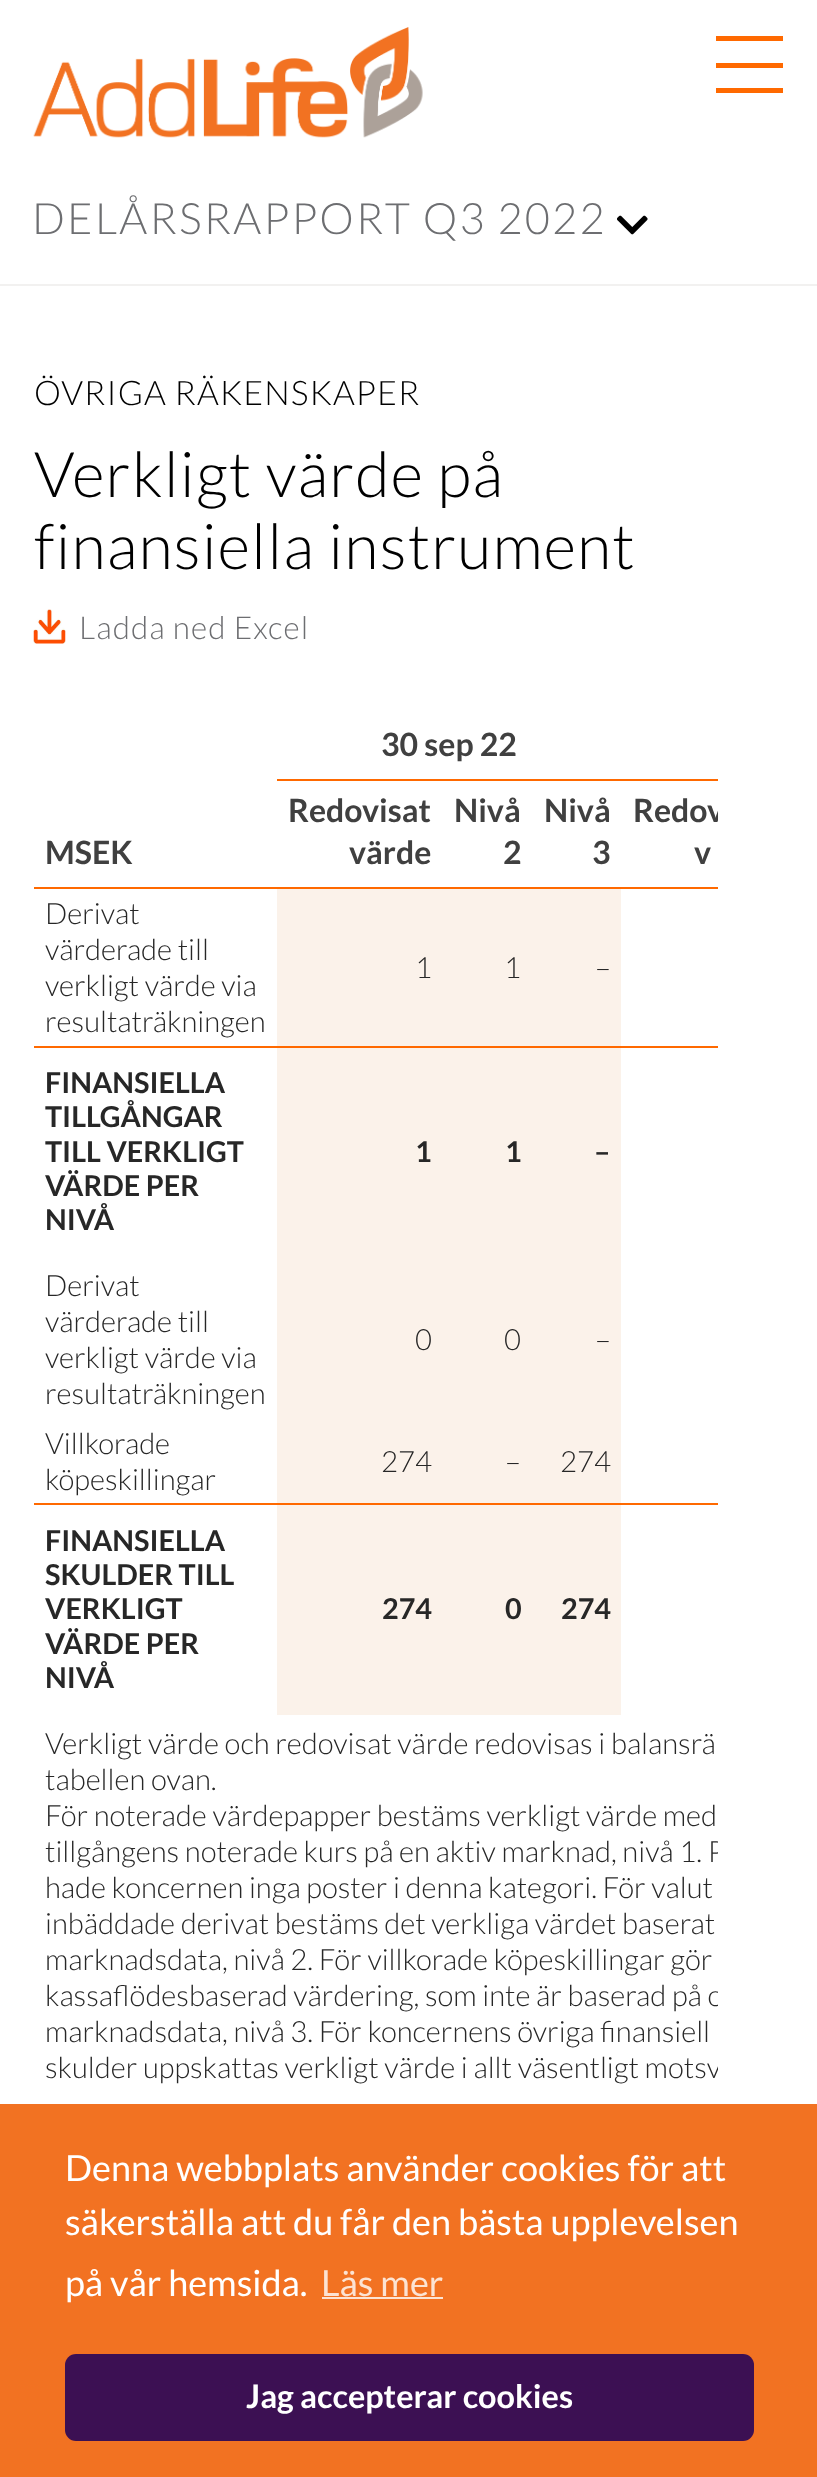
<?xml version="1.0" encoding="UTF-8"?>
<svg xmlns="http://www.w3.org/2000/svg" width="817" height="2477">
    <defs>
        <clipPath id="clip1"><rect x="34" y="691" width="684" height="1483"/></clipPath>
    </defs>
    <rect width="100%" height="100%" fill="#FFFFFF"/>
    <rect x="0" y="284" width="817" height="2" fill="#F2F1F0"/>
    <rect x="716" y="63" width="67" height="5" fill="#FF6900"/>
    <rect x="716" y="36" width="67" height="5" fill="#FF6900"/>
    <rect x="716" y="88" width="67" height="5" fill="#FF6900"/>
    <image x="33" y="27" width="390" height="111" href="img_01.png"/>
    <text x="32" y="234" font-family="Lato" font-size="43.25" font-weight="300" letter-spacing="2.25" fill="#6D6E71">DELÅRSRAPPORT Q3 2022</text>
    <image x="617" y="215" width="31" height="20" href="img_02.png"/>
    <text x="34" y="405" font-family="Lato" font-size="33.75" font-weight="300" letter-spacing="1.1" fill="#000000">ÖVRIGA RÄKENSKAPER</text>
    <text font-family="Lato" font-size="63" font-weight="300" letter-spacing="1.1" fill="#000000">
        <tspan x="34" y="497">Verkligt värde på</tspan>
        <tspan x="34" y="569">finansiella instrument</tspan>
    </text>
    <image x="33" y="609" width="33" height="35" href="img_03.png"/>
    <text x="79" y="639" font-family="Lato" font-size="31.5" font-weight="300" letter-spacing="1.1" fill="#6D6E71">Ladda ned Excel</text>
    <text x="381" y="756" font-family="Lato" font-size="32" font-weight="700" fill="#404040">30 sep 22</text>
    <rect x="277" y="779" width="441" height="2" fill="#FF6900"/>
    <text x="45" y="864" font-family="Lato" font-size="32" font-weight="700" fill="#404040">MSEK</text>
    <text x="288" y="822" font-family="Lato" font-size="32" font-weight="700" fill="#404040">Redovisat</text>
    <text x="349" y="864" font-family="Lato" font-size="32" font-weight="700" fill="#404040">värde</text>
    <text x="454" y="822" font-family="Lato" font-size="32" font-weight="700" fill="#404040">Nivå</text>
    <text x="503" y="864" font-family="Lato" font-size="32" font-weight="700" fill="#404040">2</text>
    <text x="544" y="822" font-family="Lato" font-size="32" font-weight="700" fill="#404040">Nivå</text>
    <text x="592" y="864" font-family="Lato" font-size="32" font-weight="700" fill="#404040">3</text>
    <rect x="34" y="887" width="684" height="2" fill="#FF6900"/>
    <g clip-path="url(#clip1)">
        <text x="633" y="822" font-family="Lato" font-size="32" font-weight="700" fill="#404040">Redov</text>
    </g>
    <text x="694" y="864" font-family="Lato" font-size="32" font-weight="700" fill="#404040">v</text>
    <text font-family="Lato" font-size="29.25" font-weight="300" fill="#272727">
        <tspan x="45" y="924">Derivat</tspan>
        <tspan x="45" y="960">värderade till</tspan>
        <tspan x="45" y="996">verkligt värde via</tspan>
        <tspan x="45" y="1032">resultaträkningen</tspan>
    </text>
    <rect x="277" y="889" width="344" height="157" fill="#FBF2EA"/>
    <text x="415" y="978" font-family="Lato" font-size="29.25" font-weight="300" fill="#272727">1</text>
    <text x="504" y="978" font-family="Lato" font-size="29.25" font-weight="300" fill="#272727">1</text>
    <text x="595" y="978" font-family="Lato" font-size="29.25" font-weight="300" fill="#272727">–</text>
    <rect x="34" y="1046" width="684" height="2" fill="#FF6900"/>
    <text font-family="Lato" font-size="28.75" font-weight="700" fill="#272727">
        <tspan x="45" y="1093">FINANSIELLA</tspan>
        <tspan x="45" y="1127">TILLGÅNGAR</tspan>
        <tspan x="45" y="1162">TILL VERKLIGT</tspan>
        <tspan x="45" y="1196">VÄRDE PER</tspan>
        <tspan x="45" y="1230">NIVÅ</tspan>
    </text>
    <rect x="277" y="1048" width="344" height="208" fill="#FBF2EA"/>
    <text x="415" y="1162" font-family="Lato" font-size="28.75" font-weight="700" fill="#272727">1</text>
    <text x="505" y="1162" font-family="Lato" font-size="28.75" font-weight="700" fill="#272727">1</text>
    <text x="594" y="1162" font-family="Lato" font-size="28.75" font-weight="700" fill="#272727">–</text>
    <text font-family="Lato" font-size="29.25" font-weight="300" fill="#272727">
        <tspan x="45" y="1296">Derivat</tspan>
        <tspan x="45" y="1332">värderade till</tspan>
        <tspan x="45" y="1368">verkligt värde via</tspan>
        <tspan x="45" y="1404">resultaträkningen</tspan>
    </text>
    <rect x="277" y="1256" width="344" height="162" fill="#FBF2EA"/>
    <text x="415" y="1350" font-family="Lato" font-size="29.25" font-weight="300" fill="#272727">0</text>
    <text x="504" y="1350" font-family="Lato" font-size="29.25" font-weight="300" fill="#272727">0</text>
    <text x="595" y="1350" font-family="Lato" font-size="29.25" font-weight="300" fill="#272727">–</text>
    <text font-family="Lato" font-size="29.25" font-weight="300" fill="#272727">
        <tspan x="45" y="1454">Villkorade</tspan>
        <tspan x="45" y="1490">köpeskillingar</tspan>
    </text>
    <rect x="277" y="1418" width="344" height="85" fill="#FBF2EA"/>
    <text x="381" y="1472" font-family="Lato" font-size="29.25" font-weight="300" fill="#272727">274</text>
    <text x="505" y="1472" font-family="Lato" font-size="29.25" font-weight="300" fill="#272727">–</text>
    <text x="560" y="1472" font-family="Lato" font-size="29.25" font-weight="300" fill="#272727">274</text>
    <rect x="34" y="1503" width="684" height="2" fill="#FF6900"/>
    <text font-family="Lato" font-size="28.75" font-weight="700" fill="#272727">
        <tspan x="45" y="1551">FINANSIELLA</tspan>
        <tspan x="45" y="1585">SKULDER TILL</tspan>
        <tspan x="45" y="1619">VERKLIGT</tspan>
        <tspan x="45" y="1654">VÄRDE PER</tspan>
        <tspan x="45" y="1688">NIVÅ</tspan>
    </text>
    <rect x="277" y="1505" width="344" height="210" fill="#FBF2EA"/>
    <text x="382" y="1619" font-family="Lato" font-size="28.75" font-weight="700" fill="#272727">274</text>
    <text x="505" y="1619" font-family="Lato" font-size="28.75" font-weight="700" fill="#272727">0</text>
    <text x="561" y="1619" font-family="Lato" font-size="28.75" font-weight="700" fill="#272727">274</text>
    <text font-family="Lato" font-size="29.25" font-weight="300" fill="#272727">
        <tspan x="45" y="1754">Verkligt värde och redovisat värde redovisas i balansrä</tspan>
        <tspan x="45" y="1790">tabellen ovan.</tspan>
        <tspan x="45" y="1826">För noterade värdepapper bestäms verkligt värde med</tspan>
    </text>
    <g clip-path="url(#clip1)">
        <text x="45" y="1862" font-family="Lato" font-size="29.25" font-weight="300" fill="#272727">tillgångens noterade kurs på en aktiv marknad, nivå 1. P</text>
    </g>
    <text font-family="Lato" font-size="29.25" font-weight="300" fill="#272727">
        <tspan x="45" y="1898">hade koncernen inga poster i denna kategori. För valut</tspan>
        <tspan x="45" y="1934">inbäddade derivat bestäms det verkliga värdet baserat</tspan>
        <tspan x="45" y="1970">marknadsdata, nivå 2. För villkorade köpeskillingar gör</tspan>
    </text>
    <g clip-path="url(#clip1)">
        <text x="45" y="2006" font-family="Lato" font-size="29.25" font-weight="300" fill="#272727">kassaflödesbaserad värdering, som inte är baserad på o</text>
    </g>
    <text x="45" y="2042" font-family="Lato" font-size="29.25" font-weight="300" fill="#272727">marknadsdata, nivå 3. För koncernens övriga finansiell</text>
    <g clip-path="url(#clip1)">
        <text x="45" y="2078" font-family="Lato" font-size="29.25" font-weight="300" fill="#272727">skulder uppskattas verkligt värde i allt väsentligt motsv</text>
    </g>
    <rect x="0" y="2104" width="817" height="373" fill="#F27222"/>
    <text font-family="Lato" font-size="36" fill="#FFFFFF">
        <tspan x="65" y="2181">Denna webbplats använder cookies för att</tspan>
        <tspan x="65" y="2235">säkerställa att du får den bästa upplevelsen</tspan>
        <tspan x="65" y="2296">på vår hemsida.</tspan>
    </text>
    <text x="321" y="2296" font-family="Lato" font-size="36" fill="#FCE3D3">Läs mer</text>
    <rect x="322" y="2297" width="121" height="2" fill="#FCE3D3"/>
    <rect x="65" y="2354" width="689" height="87" rx="11" fill="#3C1053"/>
    <text x="246" y="2408" font-family="Lato" font-size="32.4" font-weight="700" fill="#FFFFFF">Jag accepterar cookies</text>
</svg>
